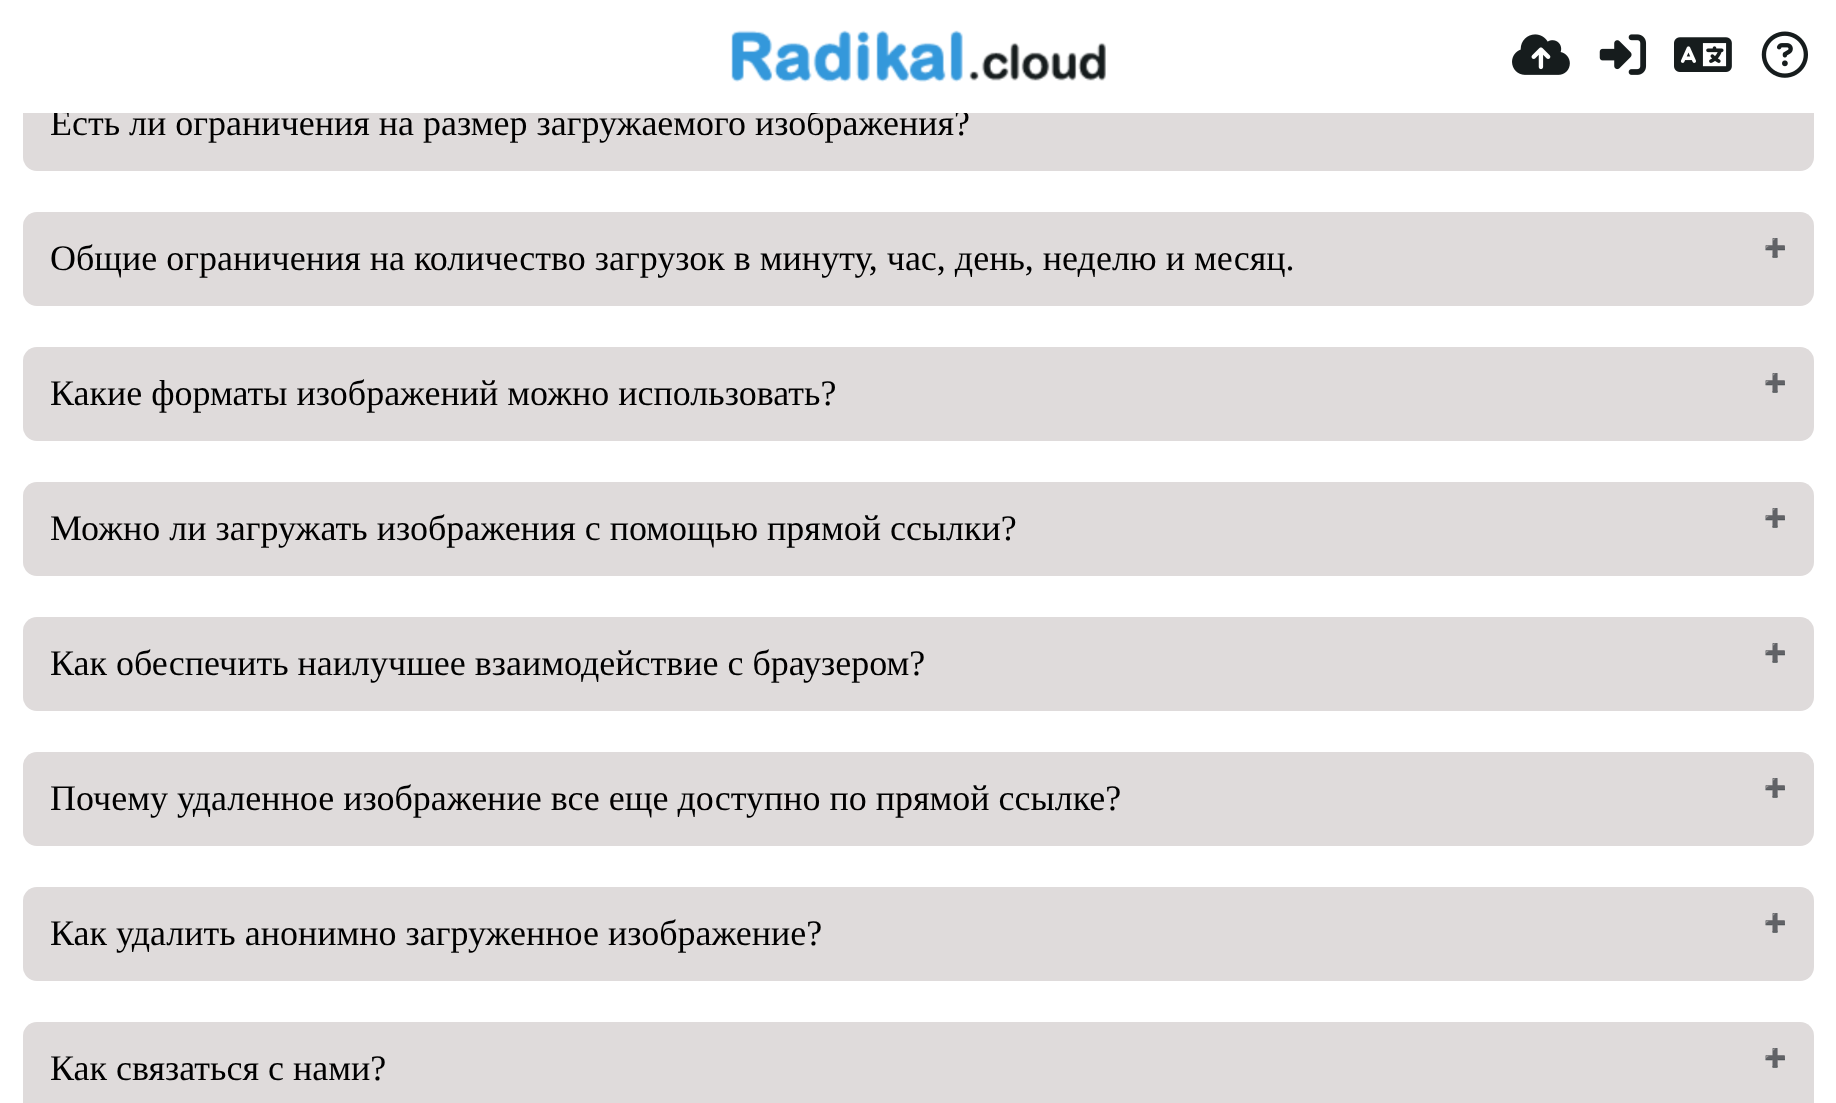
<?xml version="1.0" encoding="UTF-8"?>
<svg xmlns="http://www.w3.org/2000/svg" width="1836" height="1103">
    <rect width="100%" height="100%" fill="#FFFFFF"/>
    <rect x="23" y="77" width="1791" height="94" rx="14" fill="#DFDBDB"/>
    <text x="50" y="135" font-family="Liberation Serif" font-size="36" fill="#000000">Есть ли ограничения на размер загружаемого изображения?</text>
    <rect x="23" y="77" width="1791" height="36" fill="#FFFFFF"/>
    <image x="731" y="30" width="375" height="52" href="img_01.png"/>
    <image x="1512" y="34" width="58" height="41" href="img_02.png"/>
    <image x="1599" y="34" width="48" height="41" href="img_03.png"/>
    <image x="1674" y="37" width="58" height="35" href="img_04.png"/>
    <image x="1761" y="31" width="47" height="47" href="img_05.png"/>
    <rect x="23" y="212" width="1791" height="94" rx="14" fill="#DFDBDB"/>
    <text x="50" y="270" font-family="Liberation Serif" font-size="36" fill="#000000">Общие ограничения на количество загрузок в минуту, час, день, неделю и месяц.</text>
    <text x="1764" y="254" font-family="Noto Color Emoji" font-size="18" fill="#FF0000">➕</text>
    <rect x="23" y="347" width="1791" height="94" rx="14" fill="#DFDBDB"/>
    <text x="50" y="405" font-family="Liberation Serif" font-size="36" fill="#000000">Какие форматы изображений можно использовать?</text>
    <text x="1764" y="389" font-family="Noto Color Emoji" font-size="18" fill="#FF0000">➕</text>
    <rect x="23" y="482" width="1791" height="94" rx="14" fill="#DFDBDB"/>
    <text x="50" y="540" font-family="Liberation Serif" font-size="36" fill="#000000">Можно ли загружать изображения с помощью прямой ссылки?</text>
    <text x="1764" y="524" font-family="Noto Color Emoji" font-size="18" fill="#FF0000">➕</text>
    <rect x="23" y="617" width="1791" height="94" rx="14" fill="#DFDBDB"/>
    <text x="50" y="675" font-family="Liberation Serif" font-size="36" fill="#000000">Как обеспечить наилучшее взаимодействие с браузером?</text>
    <text x="1764" y="659" font-family="Noto Color Emoji" font-size="18" fill="#FF0000">➕</text>
    <rect x="23" y="752" width="1791" height="94" rx="14" fill="#DFDBDB"/>
    <text x="50" y="810" font-family="Liberation Serif" font-size="36" fill="#000000">Почему удаленное изображение все еще доступно по прямой ссылке?</text>
    <text x="1764" y="794" font-family="Noto Color Emoji" font-size="18" fill="#FF0000">➕</text>
    <rect x="23" y="887" width="1791" height="94" rx="14" fill="#DFDBDB"/>
    <text x="50" y="945" font-family="Liberation Serif" font-size="36" fill="#000000">Как удалить анонимно загруженное изображение?</text>
    <text x="1764" y="929" font-family="Noto Color Emoji" font-size="18" fill="#FF0000">➕</text>
    <rect x="23" y="1022" width="1791" height="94" rx="14" fill="#DFDBDB"/>
    <text x="50" y="1080" font-family="Liberation Serif" font-size="36" fill="#000000">Как связаться с нами?</text>
    <text x="1764" y="1064" font-family="Noto Color Emoji" font-size="18" fill="#FF0000">➕</text>
</svg>
